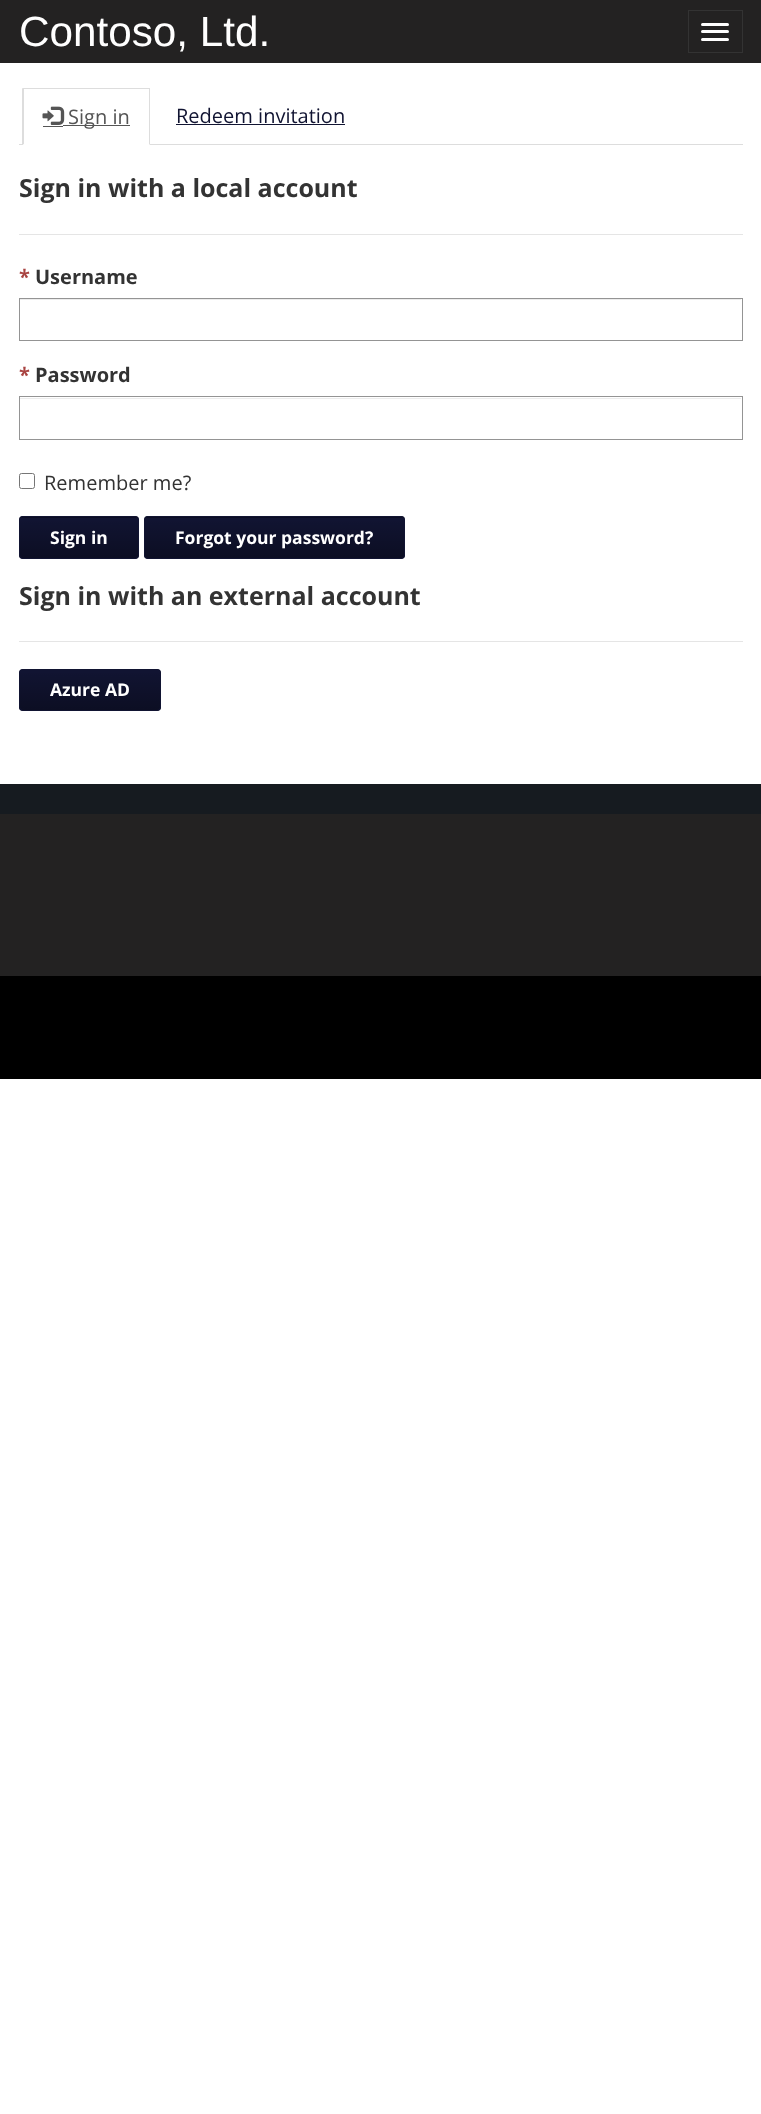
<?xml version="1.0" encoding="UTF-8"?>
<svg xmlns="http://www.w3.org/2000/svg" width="761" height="2114">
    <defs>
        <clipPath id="clip1"><rect x="19" y="516" width="120" height="43" rx="4"/></clipPath>
        <linearGradient id="g1" gradientUnits="userSpaceOnUse" x1="79" y1="478" x2="79" y2="518"><stop offset="0" stop-color="#000000" stop-opacity="0"/><stop offset="1" stop-color="#000000" stop-opacity="0.3"/></linearGradient>
        <linearGradient id="g2" gradientUnits="userSpaceOnUse" x1="79" y1="518" x2="79" y2="558"><stop offset="0" stop-color="#000000" stop-opacity="0"/><stop offset="1" stop-color="#000000" stop-opacity="0.3"/></linearGradient>
        <clipPath id="clip2"><rect x="144" y="516" width="261" height="43" rx="4"/></clipPath>
        <linearGradient id="g3" gradientUnits="userSpaceOnUse" x1="274" y1="478" x2="274" y2="518"><stop offset="0" stop-color="#000000" stop-opacity="0"/><stop offset="1" stop-color="#000000" stop-opacity="0.3"/></linearGradient>
        <linearGradient id="g4" gradientUnits="userSpaceOnUse" x1="274" y1="518" x2="274" y2="558"><stop offset="0" stop-color="#000000" stop-opacity="0"/><stop offset="1" stop-color="#000000" stop-opacity="0.3"/></linearGradient>
        <clipPath id="clip3"><rect x="19" y="669" width="142" height="42" rx="4"/></clipPath>
        <linearGradient id="g5" gradientUnits="userSpaceOnUse" x1="90" y1="670" x2="90" y2="710"><stop offset="0" stop-color="#000000" stop-opacity="0"/><stop offset="1" stop-color="#000000" stop-opacity="0.3"/></linearGradient>
    </defs>
    <rect width="100%" height="100%" fill="#FFFFFF"/>
    <rect x="0" y="0" width="761" height="63" fill="#232222"/>
    <text x="19" y="46" font-family="Liberation Sans" font-size="42.25" fill="#FFFFFF">Contoso, Ltd.</text>
    <rect x="688.5" y="10.5" width="54" height="42" fill="none" stroke="#333333"/>
    <rect x="701" y="23" width="28" height="3" rx="1.5" fill="#FFFFFF"/>
    <rect x="701" y="30" width="28" height="3" rx="1.5" fill="#FFFFFF"/>
    <rect x="701" y="38" width="28" height="3" rx="1.5" fill="#FFFFFF"/>
    <rect x="19" y="144" width="724" height="1" fill="#DDDDDD"/>
    <rect x="23" y="144" width="127" height="1" fill="#FFFFFF"/>
    <rect x="23" y="88" width="127" height="1" fill="#DDDDDD"/>
    <path d="M 150 88 V 145 L 149 144 V 89 Z" fill="#DDDDDD"/>
    <path d="M 22 145 V 88 L 24 89 V 144 Z" fill="#DDDDDD"/>
    <image x="42" y="106" width="23" height="19" href="img_01.png"/>
    <rect x="63" y="125" width="67" height="1" fill="#555555"/>
    <text x="68" y="124" font-family="Open Sans" font-size="20" fill="#555555">Sign in</text>
    <rect x="43" y="126" width="20" height="1" fill="#555555"/>
    <text x="176" y="123" font-family="Open Sans" font-size="20" fill="#111432">Redeem invitation</text>
    <rect x="176" y="124" width="169" height="1" fill="#111432"/>
    <rect x="19" y="234" width="724" height="1" fill="#E5E5E5"/>
    <text x="19" y="197" font-family="Open Sans" font-size="25" font-weight="700" fill="#333333">Sign in with a local account</text>
    <text x="19" y="284" font-family="Open Sans" font-size="20" font-weight="700" fill="#A94442">*</text>
    <text x="35" y="284" font-family="Open Sans" font-size="20" font-weight="700" fill="#333333">Username</text>
    <rect x="20" y="299" width="721" height="1" fill="#ECECEC"/>
    <rect x="19.5" y="298.5" width="723" height="42" fill="none" stroke="#949494"/>
    <text x="19" y="382" font-family="Open Sans" font-size="20" font-weight="700" fill="#A94442">*</text>
    <text x="35" y="382" font-family="Open Sans" font-size="20" font-weight="700" fill="#333333">Password</text>
    <rect x="20" y="398" width="721" height="1" fill="#ECECEC"/>
    <rect x="19.5" y="396.5" width="723" height="43" fill="none" stroke="#949494"/>
    <rect x="19.5" y="473.5" width="15" height="15" rx="2" fill="none" stroke="#767676"/>
    <text x="44" y="490" font-family="Open Sans" font-size="20" fill="#333333">Remember me?</text>
    <rect x="19" y="516" width="120" height="43" rx="4" fill="#111432"/>
    <g clip-path="url(#clip1)">
        <rect x="19" y="516" width="120" height="2" fill="url(#g1)"/>
        <rect x="19" y="521" width="120" height="37" fill="url(#g2)"/>
    </g>
    <rect x="19.5" y="516.5" width="119" height="42" rx="3.5" fill="none" stroke="#111432"/>
    <text x="50" y="544" font-family="Open Sans" font-size="17.5" font-weight="700" fill="#FFFFFF">Sign in</text>
    <rect x="144" y="516" width="261" height="43" rx="4" fill="#111432"/>
    <g clip-path="url(#clip2)">
        <rect x="144" y="516" width="261" height="2" fill="url(#g3)"/>
        <rect x="144" y="521" width="261" height="37" fill="url(#g4)"/>
    </g>
    <rect x="144.5" y="516.5" width="260" height="42" rx="3.5" fill="none" stroke="#111432"/>
    <text x="175" y="544" font-family="Open Sans" font-size="17.5" font-weight="700" fill="#FFFFFF">Forgot your password?</text>
    <rect x="19" y="641" width="724" height="1" fill="#E5E5E5"/>
    <text x="19" y="605" font-family="Open Sans" font-size="25" font-weight="700" fill="#333333">Sign in with an external account</text>
    <rect x="19" y="669" width="142" height="42" rx="4" fill="#111432"/>
    <g clip-path="url(#clip3)">
        <rect x="19" y="673" width="142" height="37" fill="url(#g5)"/>
    </g>
    <rect x="19.5" y="669.5" width="141" height="41" rx="3.5" fill="none" stroke="#111432"/>
    <text x="50" y="696" font-family="Open Sans" font-size="17.5" font-weight="700" fill="#FFFFFF">Azure AD</text>
    <rect x="0" y="784" width="761" height="30" fill="#161B20"/>
    <rect x="0" y="814" width="761" height="162" fill="#232222"/>
    <rect x="0" y="976" width="761" height="103" fill="#000000"/>
</svg>
